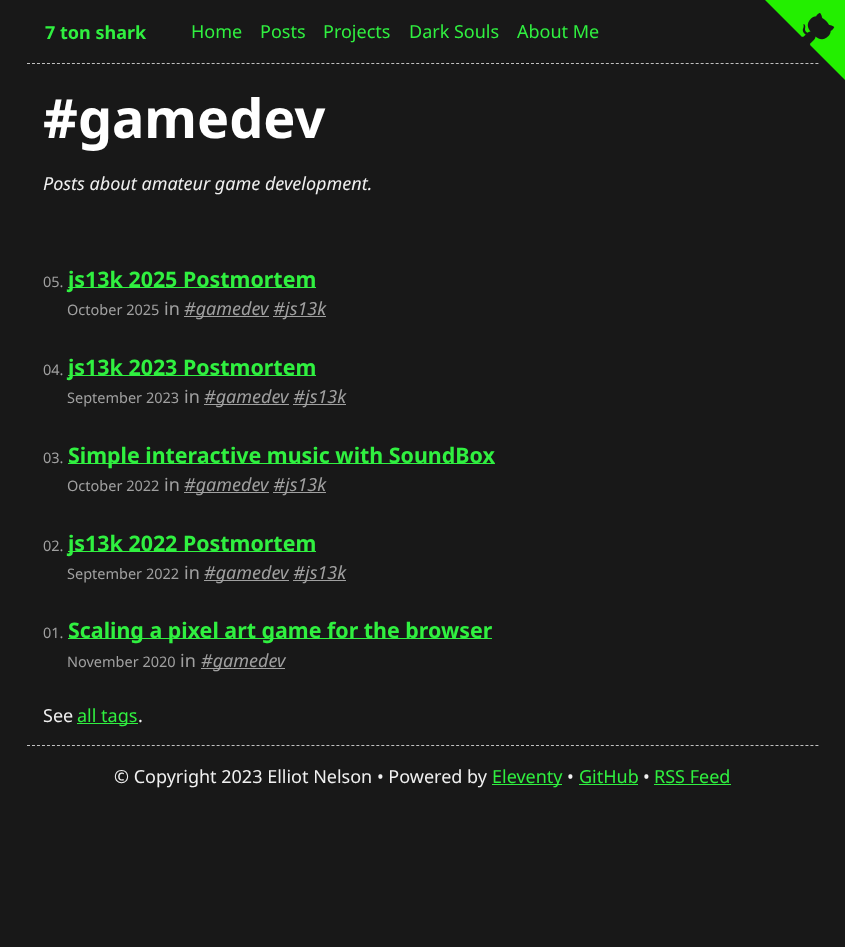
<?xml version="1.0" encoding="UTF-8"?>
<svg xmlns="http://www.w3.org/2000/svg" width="845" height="947">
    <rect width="100%" height="100%" fill="#181818"/>
    <path d="M 27 63.5 H 819" fill="none" stroke="#C0C0C0" stroke-dasharray="3 1.99"/>
    <text x="45" y="39" font-family="Noto Sans" font-size="18" font-weight="700" fill="#30F040">7 ton shark</text>
    <text x="191" y="38" font-family="Noto Sans" font-size="18" fill="#30F040">Home</text>
    <text x="260" y="38" font-family="Noto Sans" font-size="18" fill="#30F040">Posts</text>
    <text x="323" y="38" font-family="Noto Sans" font-size="18" fill="#30F040">Projects</text>
    <text x="409" y="38" font-family="Noto Sans" font-size="18" fill="#30F040">Dark Souls</text>
    <text x="517" y="38" font-family="Noto Sans" font-size="18" fill="#30F040">About Me</text>
    <image x="765" y="0" width="80" height="80" href="img_01.png"/>
    <text x="43" y="138" font-family="Noto Sans" font-size="54" font-weight="700" fill="#FFFFFF">#gamedev</text>
    <text x="43" y="190" font-family="Noto Sans" font-size="18" font-style="italic" fill="#F0F0F0">Posts about amateur game development.</text>
    <text x="43" y="287" font-family="Noto Sans" font-size="14.5" fill="#A0A0A0">05.</text>
    <rect x="68" y="287" width="248" height="1" fill="#30F040"/>
    <text x="68" y="287" font-family="Noto Sans" font-size="21.4" font-weight="700" fill="#30F040">js13k 2025 Postmortem</text>
    <text x="67" y="315" font-family="Noto Sans" font-size="14.5" fill="#A0A0A0">October 2025</text>
    <text x="164" y="315" font-family="Noto Sans" font-size="18" fill="#A0A0A0">in</text>
    <rect x="184" y="316" width="85" height="1" fill="#A0A0A0"/>
    <text x="184" y="315" font-family="Noto Sans" font-size="18" font-style="italic" fill="#A0A0A0">#gamedev #</text>
    <rect x="273" y="316" width="53" height="1" fill="#A0A0A0"/>
    <text x="285" y="315" font-family="Noto Sans" font-size="18" font-style="italic" fill="#A0A0A0">js13k</text>
    <text x="43" y="375" font-family="Noto Sans" font-size="14.5" fill="#A0A0A0">04.</text>
    <rect x="68" y="375" width="248" height="1" fill="#30F040"/>
    <text x="68" y="375" font-family="Noto Sans" font-size="21.4" font-weight="700" fill="#30F040">js13k 2023 Postmortem</text>
    <text x="67" y="403" font-family="Noto Sans" font-size="14.5" fill="#A0A0A0">September 2023</text>
    <text x="184" y="403" font-family="Noto Sans" font-size="18" fill="#A0A0A0">in</text>
    <rect x="204" y="404" width="85" height="1" fill="#A0A0A0"/>
    <text x="204" y="403" font-family="Noto Sans" font-size="18" font-style="italic" fill="#A0A0A0">#gamedev #</text>
    <rect x="293" y="404" width="53" height="1" fill="#A0A0A0"/>
    <text x="305" y="403" font-family="Noto Sans" font-size="18" font-style="italic" fill="#A0A0A0">js13k</text>
    <text x="43" y="463" font-family="Noto Sans" font-size="14.5" fill="#A0A0A0">03.</text>
    <rect x="68" y="463" width="427" height="1" fill="#30F040"/>
    <text x="68" y="463" font-family="Noto Sans" font-size="21.4" font-weight="700" fill="#30F040">Simple interactive music with SoundBox</text>
    <text x="67" y="491" font-family="Noto Sans" font-size="14.5" fill="#A0A0A0">October 2022</text>
    <text x="164" y="491" font-family="Noto Sans" font-size="18" fill="#A0A0A0">in</text>
    <rect x="184" y="492" width="85" height="1" fill="#A0A0A0"/>
    <text x="184" y="491" font-family="Noto Sans" font-size="18" font-style="italic" fill="#A0A0A0">#gamedev #</text>
    <rect x="273" y="492" width="53" height="1" fill="#A0A0A0"/>
    <text x="285" y="491" font-family="Noto Sans" font-size="18" font-style="italic" fill="#A0A0A0">js13k</text>
    <text x="43" y="551" font-family="Noto Sans" font-size="14.5" fill="#A0A0A0">02.</text>
    <rect x="68" y="551" width="248" height="1" fill="#30F040"/>
    <text x="68" y="551" font-family="Noto Sans" font-size="21.4" font-weight="700" fill="#30F040">js13k 2022 Postmortem</text>
    <text x="67" y="579" font-family="Noto Sans" font-size="14.5" fill="#A0A0A0">September 2022</text>
    <text x="184" y="579" font-family="Noto Sans" font-size="18" fill="#A0A0A0">in</text>
    <rect x="204" y="580" width="85" height="1" fill="#A0A0A0"/>
    <text x="204" y="579" font-family="Noto Sans" font-size="18" font-style="italic" fill="#A0A0A0">#gamedev #</text>
    <rect x="293" y="580" width="53" height="1" fill="#A0A0A0"/>
    <text x="305" y="579" font-family="Noto Sans" font-size="18" font-style="italic" fill="#A0A0A0">js13k</text>
    <text x="43" y="638" font-family="Noto Sans" font-size="14.5" fill="#A0A0A0">01.</text>
    <rect x="68" y="638" width="424" height="1" fill="#30F040"/>
    <text x="68" y="638" font-family="Noto Sans" font-size="21.4" font-weight="700" fill="#30F040">Scaling a pixel art game for the browser</text>
    <text x="67" y="667" font-family="Noto Sans" font-size="14.5" fill="#A0A0A0">November 2020</text>
    <text x="180" y="667" font-family="Noto Sans" font-size="18" fill="#A0A0A0">in</text>
    <rect x="201" y="668" width="84" height="1" fill="#A0A0A0"/>
    <text x="201" y="667" font-family="Noto Sans" font-size="18" font-style="italic" fill="#A0A0A0">#gamedev</text>
    <text x="43" y="722" font-family="Noto Sans" font-size="18" fill="#F0F0F0">See</text>
    <rect x="77" y="723" width="61" height="1" fill="#30F040"/>
    <text x="77" y="722" font-family="Noto Sans" font-size="18" fill="#30F040">all tags</text>
    <text x="138" y="722" font-family="Noto Sans" font-size="18" fill="#F0F0F0">.</text>
    <path d="M 27 745.5 H 819" fill="none" stroke="#C0C0C0" stroke-dasharray="3 1.99"/>
    <text x="114" y="783" font-family="Noto Sans" font-size="18" fill="#F0F0F0">© Copyright 2023 Elliot Nelson • Powered by</text>
    <rect x="492" y="784" width="70" height="1" fill="#30F040"/>
    <text x="492" y="783" font-family="Noto Sans" font-size="18" fill="#30F040">Eleventy</text>
    <text x="567" y="783" font-family="Noto Sans" font-size="18" fill="#F0F0F0">•</text>
    <text x="579" y="783" font-family="Noto Sans" font-size="18" fill="#30F040">GitHub</text>
    <rect x="579" y="784" width="59" height="1" fill="#30F040"/>
    <text x="643" y="783" font-family="Noto Sans" font-size="18" fill="#F0F0F0">•</text>
    <text x="654" y="783" font-family="Noto Sans" font-size="18" fill="#30F040">RSS Feed</text>
    <rect x="654" y="784" width="77" height="1" fill="#30F040"/>
</svg>
